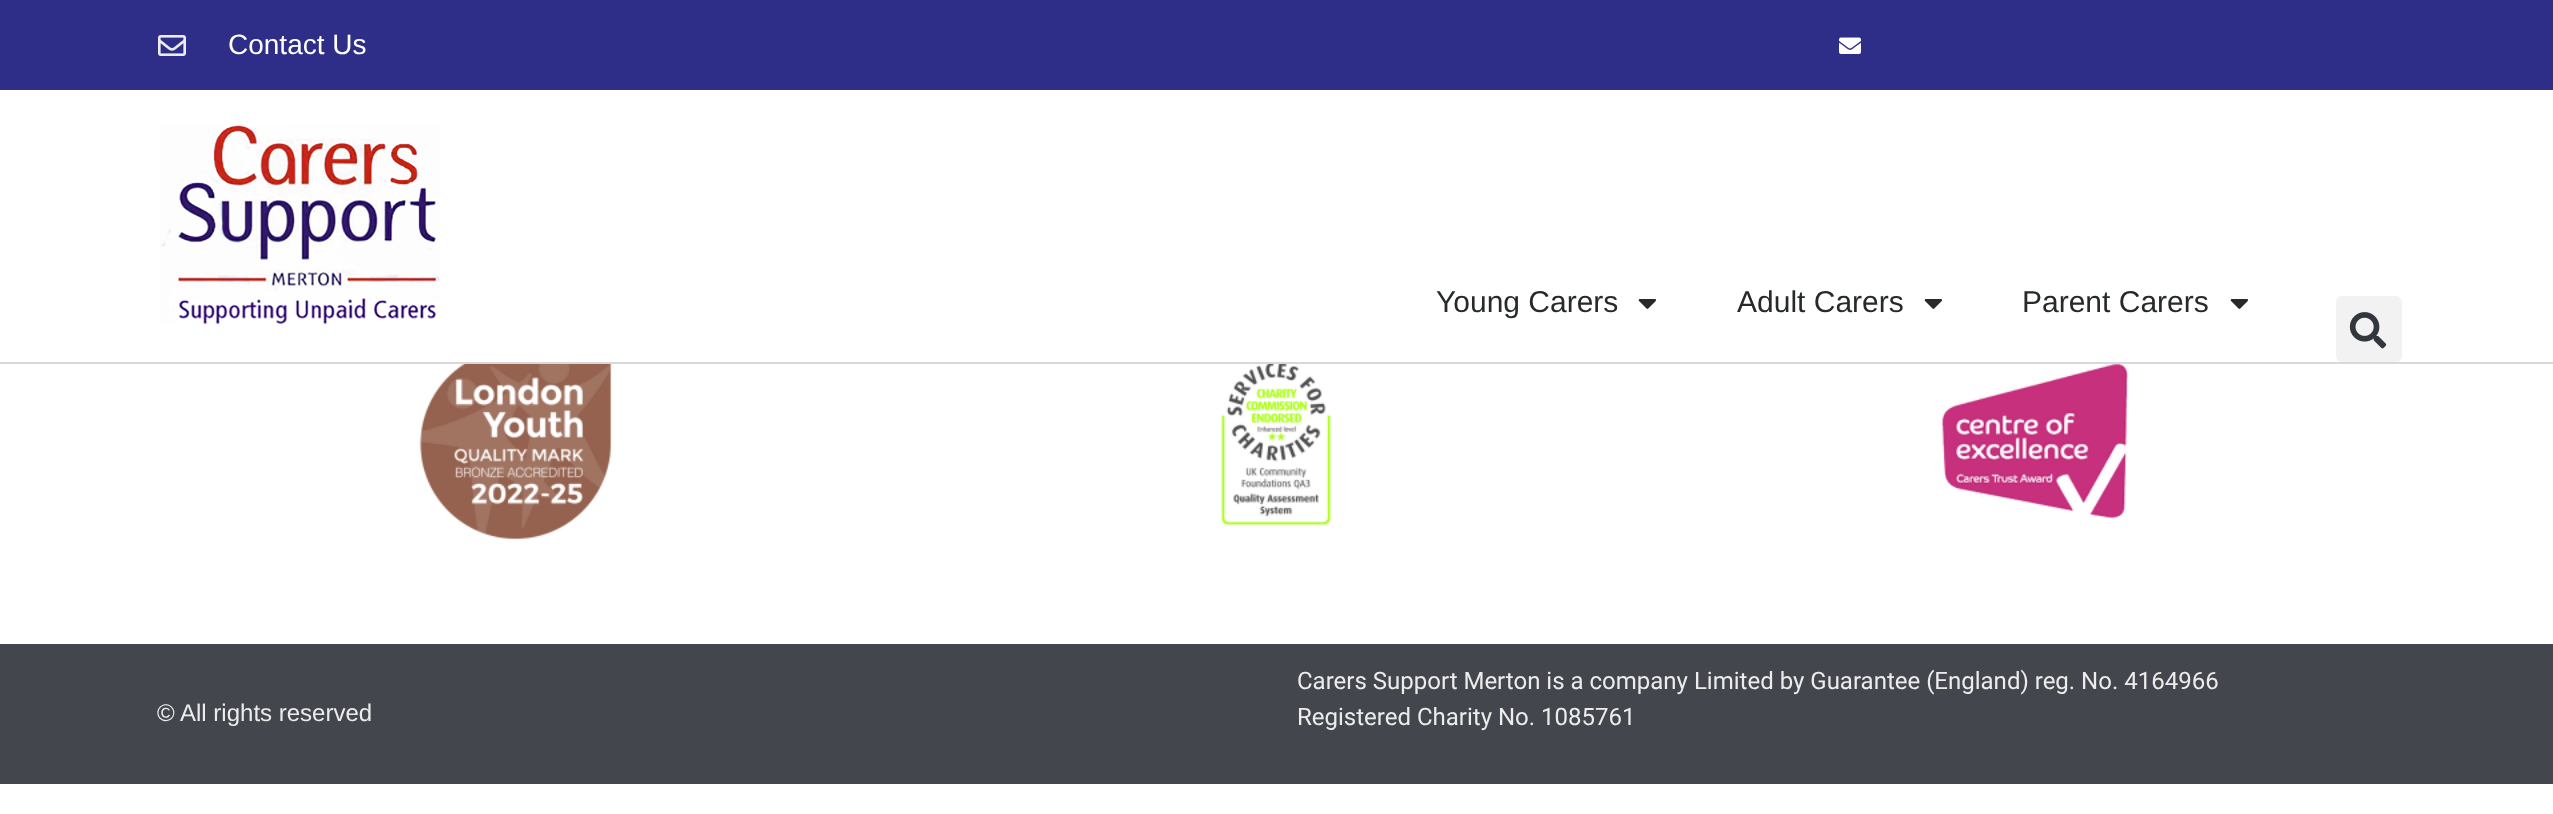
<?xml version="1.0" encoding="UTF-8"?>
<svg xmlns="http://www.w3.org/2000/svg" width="2553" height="814">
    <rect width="100%" height="100%" fill="#FFFFFF"/>
    <rect x="0" y="0" width="2553" height="90" fill="#2E2E88"/>
    <image x="158" y="35" width="28" height="21" href="img_01.png"/>
    <text x="228" y="54" font-family="Liberation Sans" font-size="28" fill="#FFFFFF">Contact Us</text>
    <image x="1839" y="37" width="22" height="17" href="img_02.png"/>
    <rect x="0" y="362" width="2553" height="2" fill="#D8D8D8"/>
    <image x="160" y="125" width="280" height="200" href="img_03.png"/>
    <text x="1436" y="312" font-family="Liberation Sans" font-size="30" fill="#262A2B">Young Carers</text>
    <image x="1638" y="299" width="19" height="10" href="img_04.png"/>
    <text x="1737" y="312" font-family="Liberation Sans" font-size="30" fill="#262A2B">Adult Carers</text>
    <image x="1924" y="299" width="19" height="10" href="img_04.png"/>
    <text x="2022" y="312" font-family="Liberation Sans" font-size="30" fill="#262A2B">Parent Carers</text>
    <image x="2230" y="299" width="19" height="10" href="img_04.png"/>
    <rect x="2336" y="296" width="66" height="66" rx="6" fill="#F2F2F2"/>
    <image x="2349" y="312" width="38" height="37" href="img_05.png"/>
    <image x="419" y="364" width="193" height="176" href="img_06.png"/>
    <image x="1221" y="364" width="110" height="162" href="img_07.png"/>
    <image x="1941" y="364" width="188" height="155" href="img_08.png"/>
    <rect x="0" y="644" width="2553" height="140" fill="#43464C"/>
    <text x="157" y="721" font-family="Liberation Sans" font-size="24" fill="#ECECEC">© All rights reserved</text>
    <text font-family="Roboto" font-size="24" fill="#ECECEC">
        <tspan x="1297" y="689">Carers Support Merton is a company Limited by Guarantee (England) reg. No. 4164966</tspan>
        <tspan x="1297" y="725">Registered Charity No. 1085761</tspan>
    </text>
</svg>
